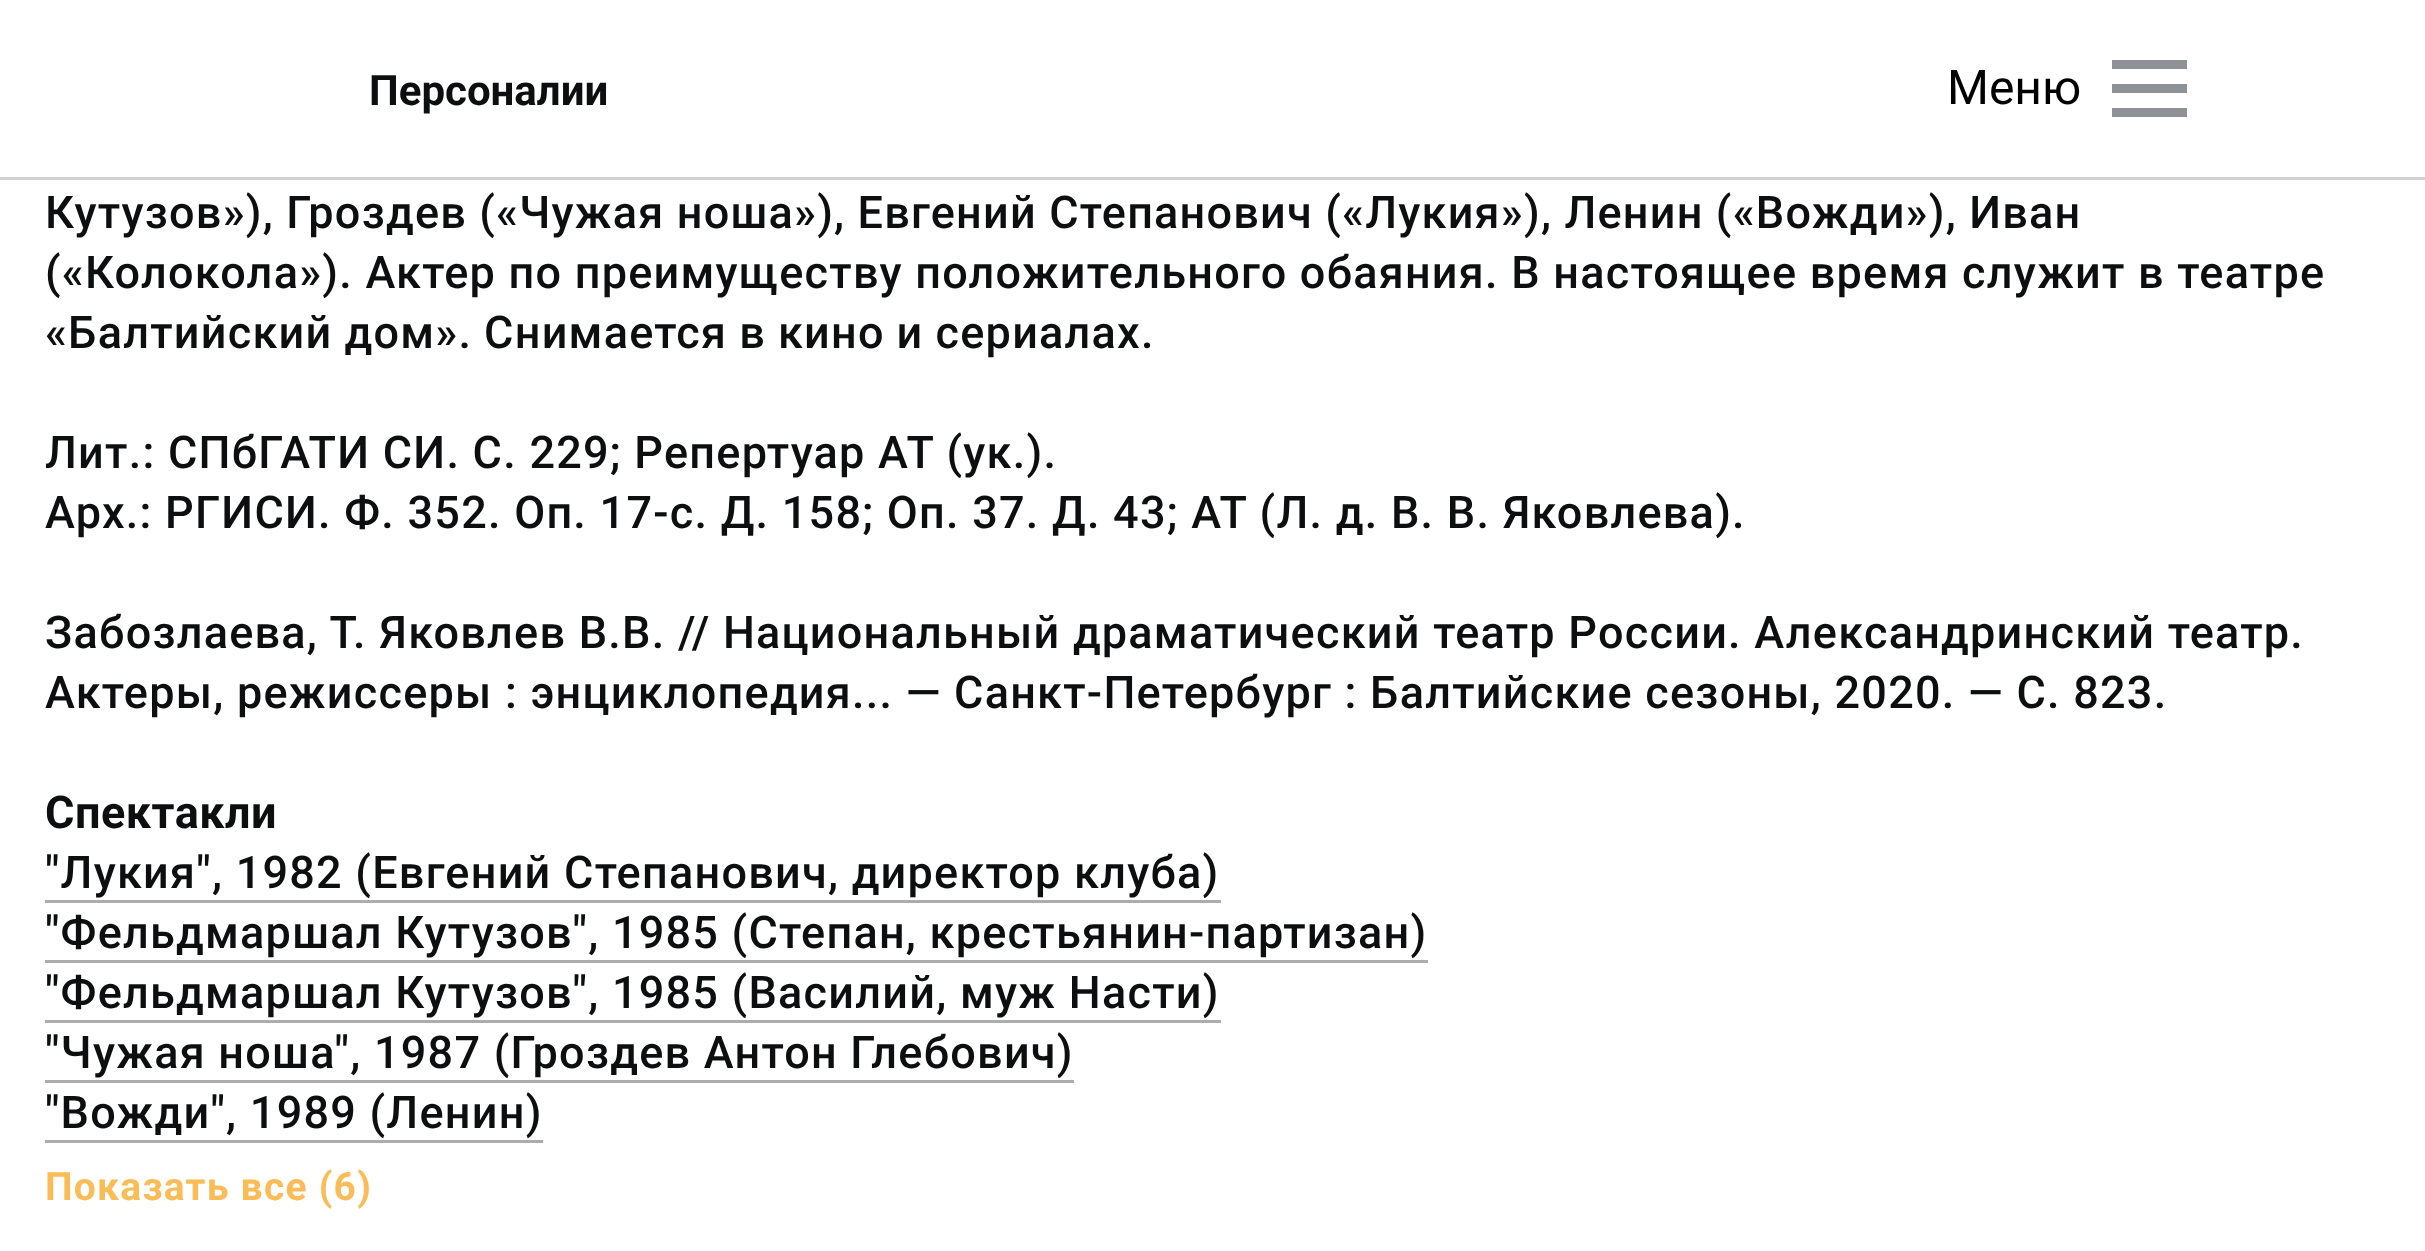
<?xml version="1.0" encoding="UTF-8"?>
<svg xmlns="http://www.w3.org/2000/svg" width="2425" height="1251">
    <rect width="100%" height="100%" fill="#FFFFFF"/>
    <rect x="0" y="177" width="2425" height="3" fill="#D3D3D3"/>
    <text x="369" y="105" font-family="Roboto" font-size="42" font-weight="700" fill="#0C0E10">Персоналии</text>
    <rect x="2112" y="60" width="75" height="9" fill="#8E9195"/>
    <text x="1947" y="104" font-family="Roboto" font-size="48" fill="#000000">Меню</text>
    <rect x="2112" y="84" width="75" height="9" fill="#8E9195"/>
    <rect x="2112" y="108" width="75" height="9" fill="#8E9195"/>
    <text font-family="Roboto" font-size="45" font-weight="500" letter-spacing="1.25" fill="#0C0E10">
        <tspan x="45" y="228" word-spacing="-0.25">Кутузов»), Гроздев («Чужая ноша»), Евгений Степанович («Лукия»), Ленин («Вожди»), Иван</tspan>
        <tspan x="45" y="288">(«Колокола»). Актер по преимуществу положительного обаяния. В настоящее время служит в театре</tspan>
        <tspan x="45" y="348" word-spacing="-0.5">«Балтийский дом». Снимается в кино и сериалах.</tspan>
    </text>
    <text font-family="Roboto" font-size="45" font-weight="500" letter-spacing="1.25" fill="#0C0E10">
        <tspan x="45" y="468">Лит.: СПбГАТИ СИ. С. 229; Репертуар АТ (ук.).</tspan>
        <tspan x="45" y="528">Арх.: РГИСИ. Ф. 352. Оп. 17-с. Д. 158; Оп. 37. Д. 43; АТ (Л. д. В. В. Яковлева).</tspan>
    </text>
    <text font-family="Roboto" font-size="45" font-weight="500" letter-spacing="1.25" fill="#0C0E10">
        <tspan x="45" y="648">Забозлаева, Т. Яковлев В.В. // Национальный драматический театр России. Александринский театр.</tspan>
        <tspan x="45" y="708">Актеры, режиссеры : энциклопедия... — Санкт-Петербург : Балтийские сезоны, 2020. — С. 823.</tspan>
    </text>
    <text x="45" y="828" font-family="Roboto" font-size="45" font-weight="700" letter-spacing="0.5" fill="#0C0E10">Cпектакли</text>
    <text x="45" y="888" font-family="Roboto" font-size="45" font-weight="500" letter-spacing="1.25" fill="#0C0E10">"Лукия", 1982 (Евгений Степанович, директор клуба)</text>
    <rect x="45" y="900" width="1176" height="3" fill="#ACACAC"/>
    <text x="45" y="948" font-family="Roboto" font-size="45" font-weight="500" letter-spacing="1.25" fill="#0C0E10">"Фельдмаршал Кутузов", 1985 (Степан, крестьянин-партизан)</text>
    <rect x="45" y="960" width="1383" height="3" fill="#ACACAC"/>
    <text x="45" y="1008" font-family="Roboto" font-size="45" font-weight="500" letter-spacing="1.25" fill="#0C0E10">"Фельдмаршал Кутузов", 1985 (Василий, муж Насти)</text>
    <rect x="45" y="1020" width="1176" height="3" fill="#ACACAC"/>
    <text x="45" y="1068" font-family="Roboto" font-size="45" font-weight="500" letter-spacing="1.25" fill="#0C0E10">"Чужая ноша", 1987 (Гроздев Антон Глебович)</text>
    <rect x="45" y="1080" width="1029" height="3" fill="#ACACAC"/>
    <text x="45" y="1128" font-family="Roboto" font-size="45" font-weight="500" letter-spacing="1.25" fill="#0C0E10">"Вожди", 1989 (Ленин)</text>
    <rect x="45" y="1140" width="498" height="3" fill="#ACACAC"/>
    <text x="45" y="1200" font-family="Roboto" font-size="39" font-weight="700" letter-spacing="1.25" fill="#FABC57">Показать все (6)</text>
</svg>
